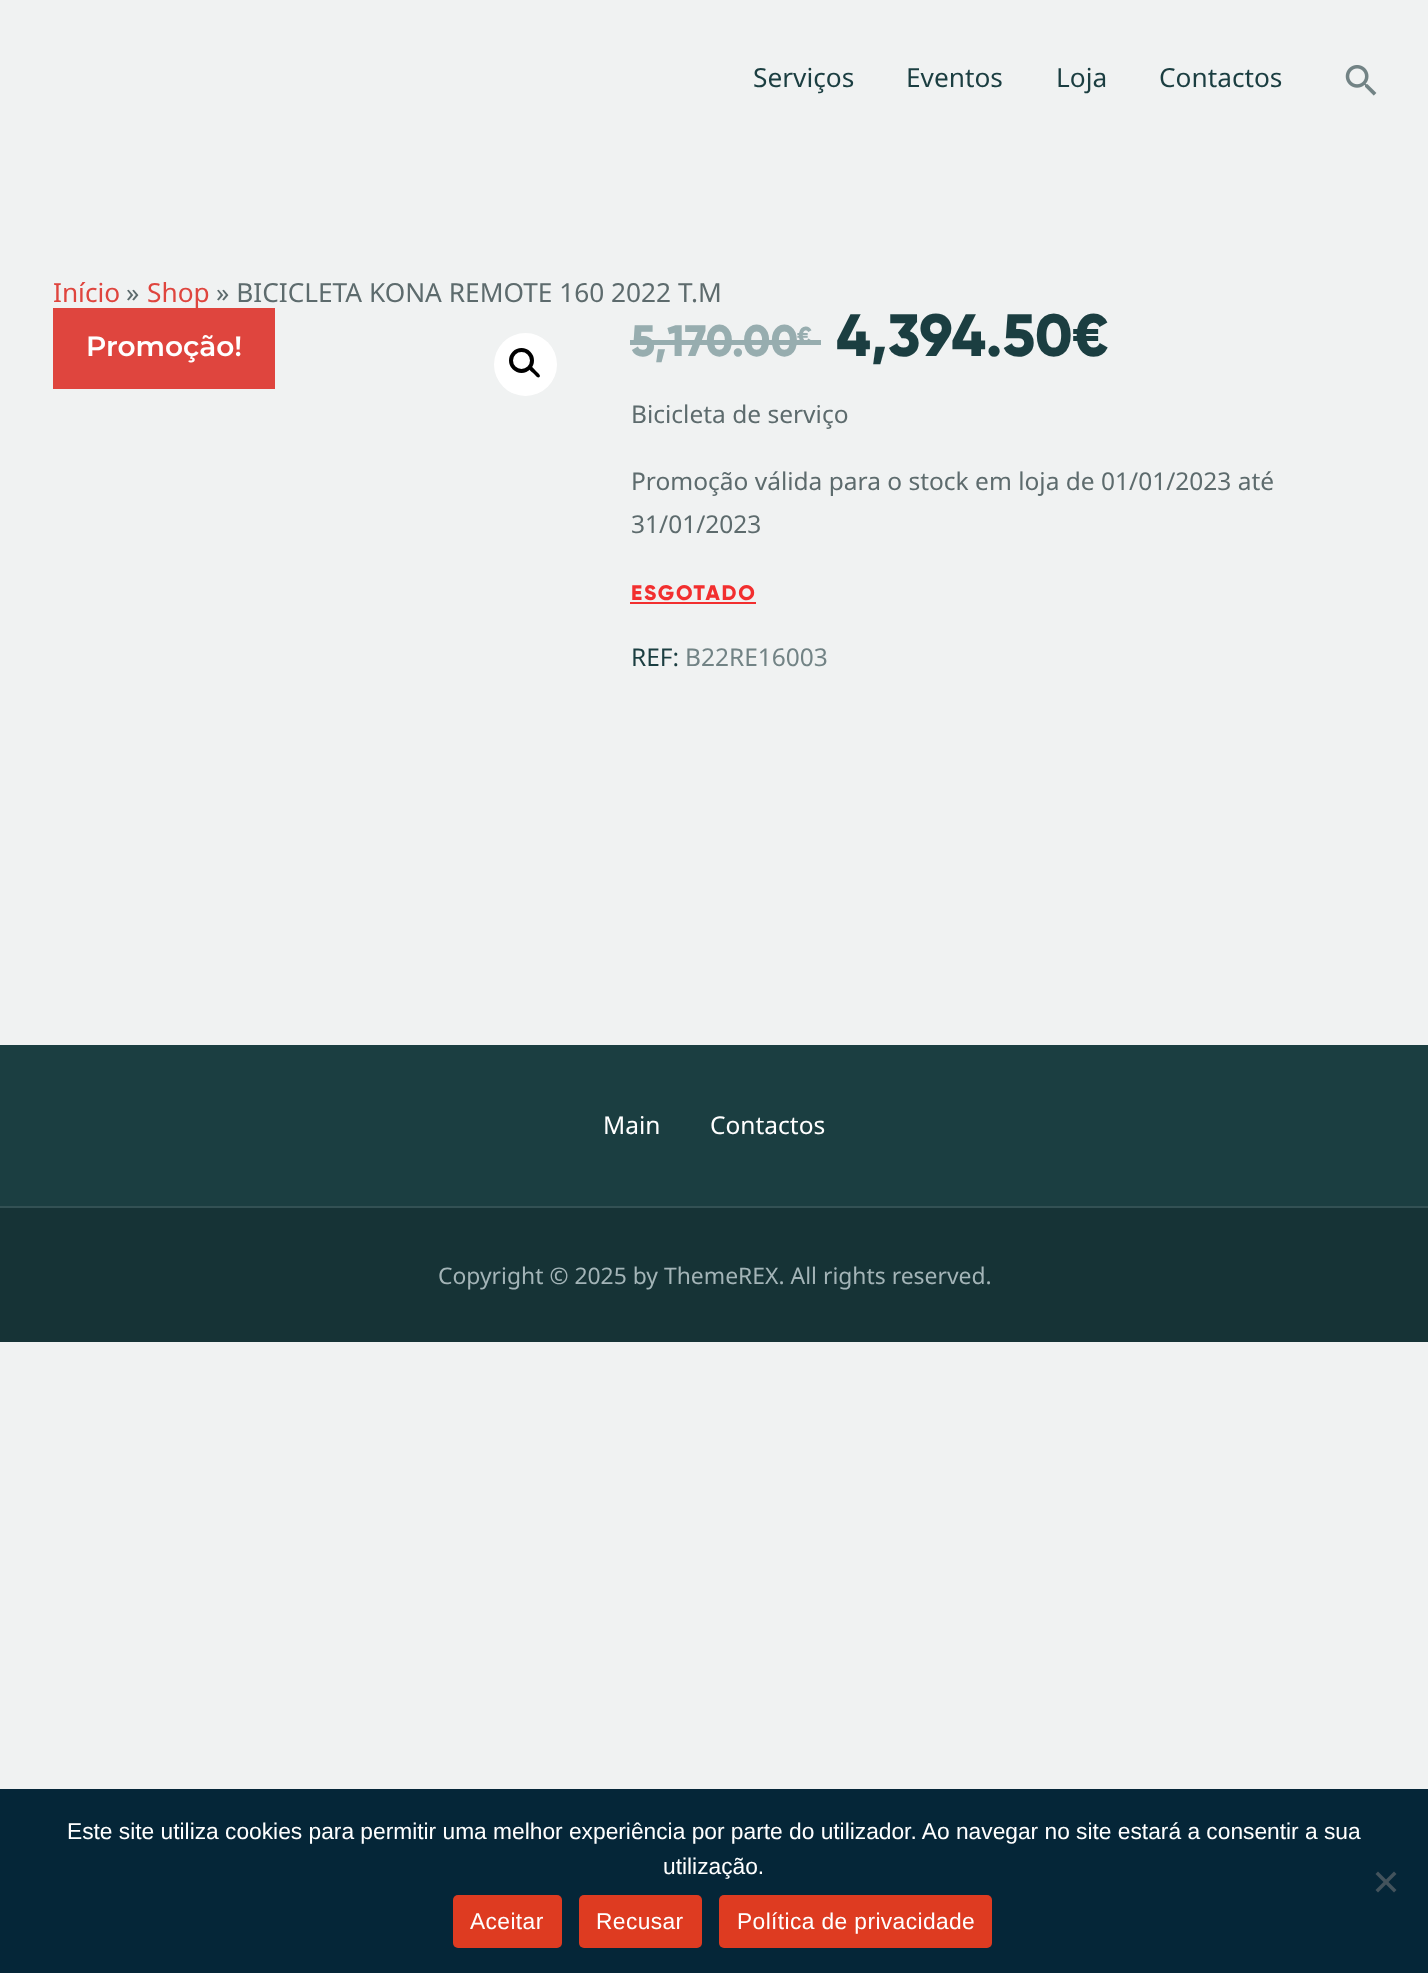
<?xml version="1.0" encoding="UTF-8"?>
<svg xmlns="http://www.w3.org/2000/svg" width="1428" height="1973">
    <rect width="100%" height="100%" fill="#F0F2F2"/>
    <text x="753" y="87" font-family="Noto Sans" font-size="26.25" fill="#1B3E41">Serviços</text>
    <text x="906" y="87" font-family="Noto Sans" font-size="26.25" fill="#1B3E41">Eventos</text>
    <text x="1056" y="87" font-family="Noto Sans" font-size="26.25" fill="#1B3E41">Loja</text>
    <text x="1159" y="87" font-family="Noto Sans" font-size="26.25" fill="#1B3E41">Contactos</text>
    <image x="1345" y="65" width="32" height="31" href="img_01.png"/>
    <text x="53" y="302" font-family="Noto Sans" font-size="26.25" fill="#DF453E">Início</text>
    <text x="126" y="302" font-family="Noto Sans" font-size="26.25" fill="#5D6B6D">»</text>
    <text x="147" y="302" font-family="Noto Sans" font-size="26.25" fill="#DF453E">Shop</text>
    <text x="216" y="302" font-family="Noto Sans" font-size="26.25" fill="#5D6B6D">» BICICLETA KONA REMOTE 160 2022 T.M</text>
    <rect x="53" y="308" width="222" height="81" fill="#DF453E"/>
    <text x="86" y="356" font-family="Montserrat" font-size="28" font-weight="600" fill="#FFFFFF">Promoção!</text>
    <circle cx="525.5" cy="364.5" r="31.5" fill="#FFFFFF"/>
    <circle cx="521.5" cy="360.5" r="10.5" fill="none" stroke="#000000" stroke-width="4"/>
    <path d="M 529.5 367 C 531.5 365 534.5 369.5 535.5 370.5 C 536.5 372 541.5 375 539.5 377 C 537.5 379 534.5 374 533 373 C 532 372 527.5 369 529.5 367 Z" fill="#000000"/>
    <text x="631" y="356" font-family="Gilroy" font-size="44" font-weight="800" fill="#97ADAF">5,170.00</text>
    <text x="797" y="344" font-family="Gilroy" font-size="24.5" font-weight="800" fill="#97ADAF">€</text>
    <rect x="630" y="340" width="191" height="5" fill="#97ADAF"/>
    <text x="836" y="356" font-family="Gilroy" font-size="59.5" font-weight="800" fill="#1B3E41">4,394.50€</text>
    <text x="631" y="423" font-family="Noto Sans" font-size="24.5" fill="#5D6B6D">Bicicleta de serviço</text>
    <text font-family="Noto Sans" font-size="24.5" fill="#5D6B6D">
        <tspan x="631" y="490">Promoção válida para o stock em loja de 01/01/2023 até</tspan>
        <tspan x="631" y="533">31/01/2023</tspan>
    </text>
    <text x="631" y="600" font-family="Gilroy" font-size="21" font-weight="800" letter-spacing="1.75" fill="#F22F2F">ESGOTADO</text>
    <rect x="630" y="602" width="126" height="2" fill="#F22F2F"/>
    <text x="631" y="666" font-family="Noto Sans" font-size="24.5" fill="#1B3E41">REF:</text>
    <text x="685" y="666" font-family="Noto Sans" font-size="24.5" fill="#728385">B22RE16003</text>
    <rect x="0" y="1045" width="1428" height="161" fill="#1B3E41"/>
    <text x="603" y="1134" font-family="Noto Sans" font-size="24.5" fill="#FFFFFF">Main</text>
    <text x="710" y="1134" font-family="Noto Sans" font-size="24.5" fill="#FFFFFF">Contactos</text>
    <rect x="0" y="1208" width="1428" height="134" fill="#163336"/>
    <rect x="0" y="1206" width="1428" height="2" fill="#335154"/>
    <text x="438" y="1284" font-family="Noto Sans" font-size="22.9" fill="#A3B4B7">Copyright © 2025 by ThemeREX. All rights reserved.</text>
    <rect x="0" y="1789" width="1428" height="184" fill="#052638"/>
    <text x="67" y="1839" font-family="Liberation Sans" font-size="22.75" fill="#FFFFFF">Este site utiliza cookies para permitir uma melhor experiência por parte do utilizador. Ao navegar no site estará a consentir a sua</text>
    <text x="663" y="1874" font-family="Liberation Sans" font-size="22.75" fill="#FFFFFF">utilização.</text>
    <path d="M 1394 1871.5 L 1396.5 1874 L 1378 1892.5 L 1375.5 1890 Z" fill="#43535C"/>
    <path d="M 1375.5 1874 L 1378 1871.5 L 1396.5 1890 L 1394 1892.5 Z" fill="#43535C"/>
    <rect x="453" y="1895" width="109" height="53" rx="5" fill="#DE3B21"/>
    <text x="470" y="1929" font-family="Liberation Sans" font-size="22.75" letter-spacing="0.4" fill="#FFFFFF">Aceitar</text>
    <rect x="579" y="1895" width="123" height="53" rx="5" fill="#DE3B21"/>
    <text x="596" y="1929" font-family="Liberation Sans" font-size="22.75" letter-spacing="0.4" fill="#FFFFFF">Recusar</text>
    <rect x="719" y="1895" width="273" height="53" rx="5" fill="#DE3B21"/>
    <text x="737" y="1929" font-family="Liberation Sans" font-size="22.75" letter-spacing="0.4" fill="#FFFFFF">Política de privacidade</text>
</svg>
